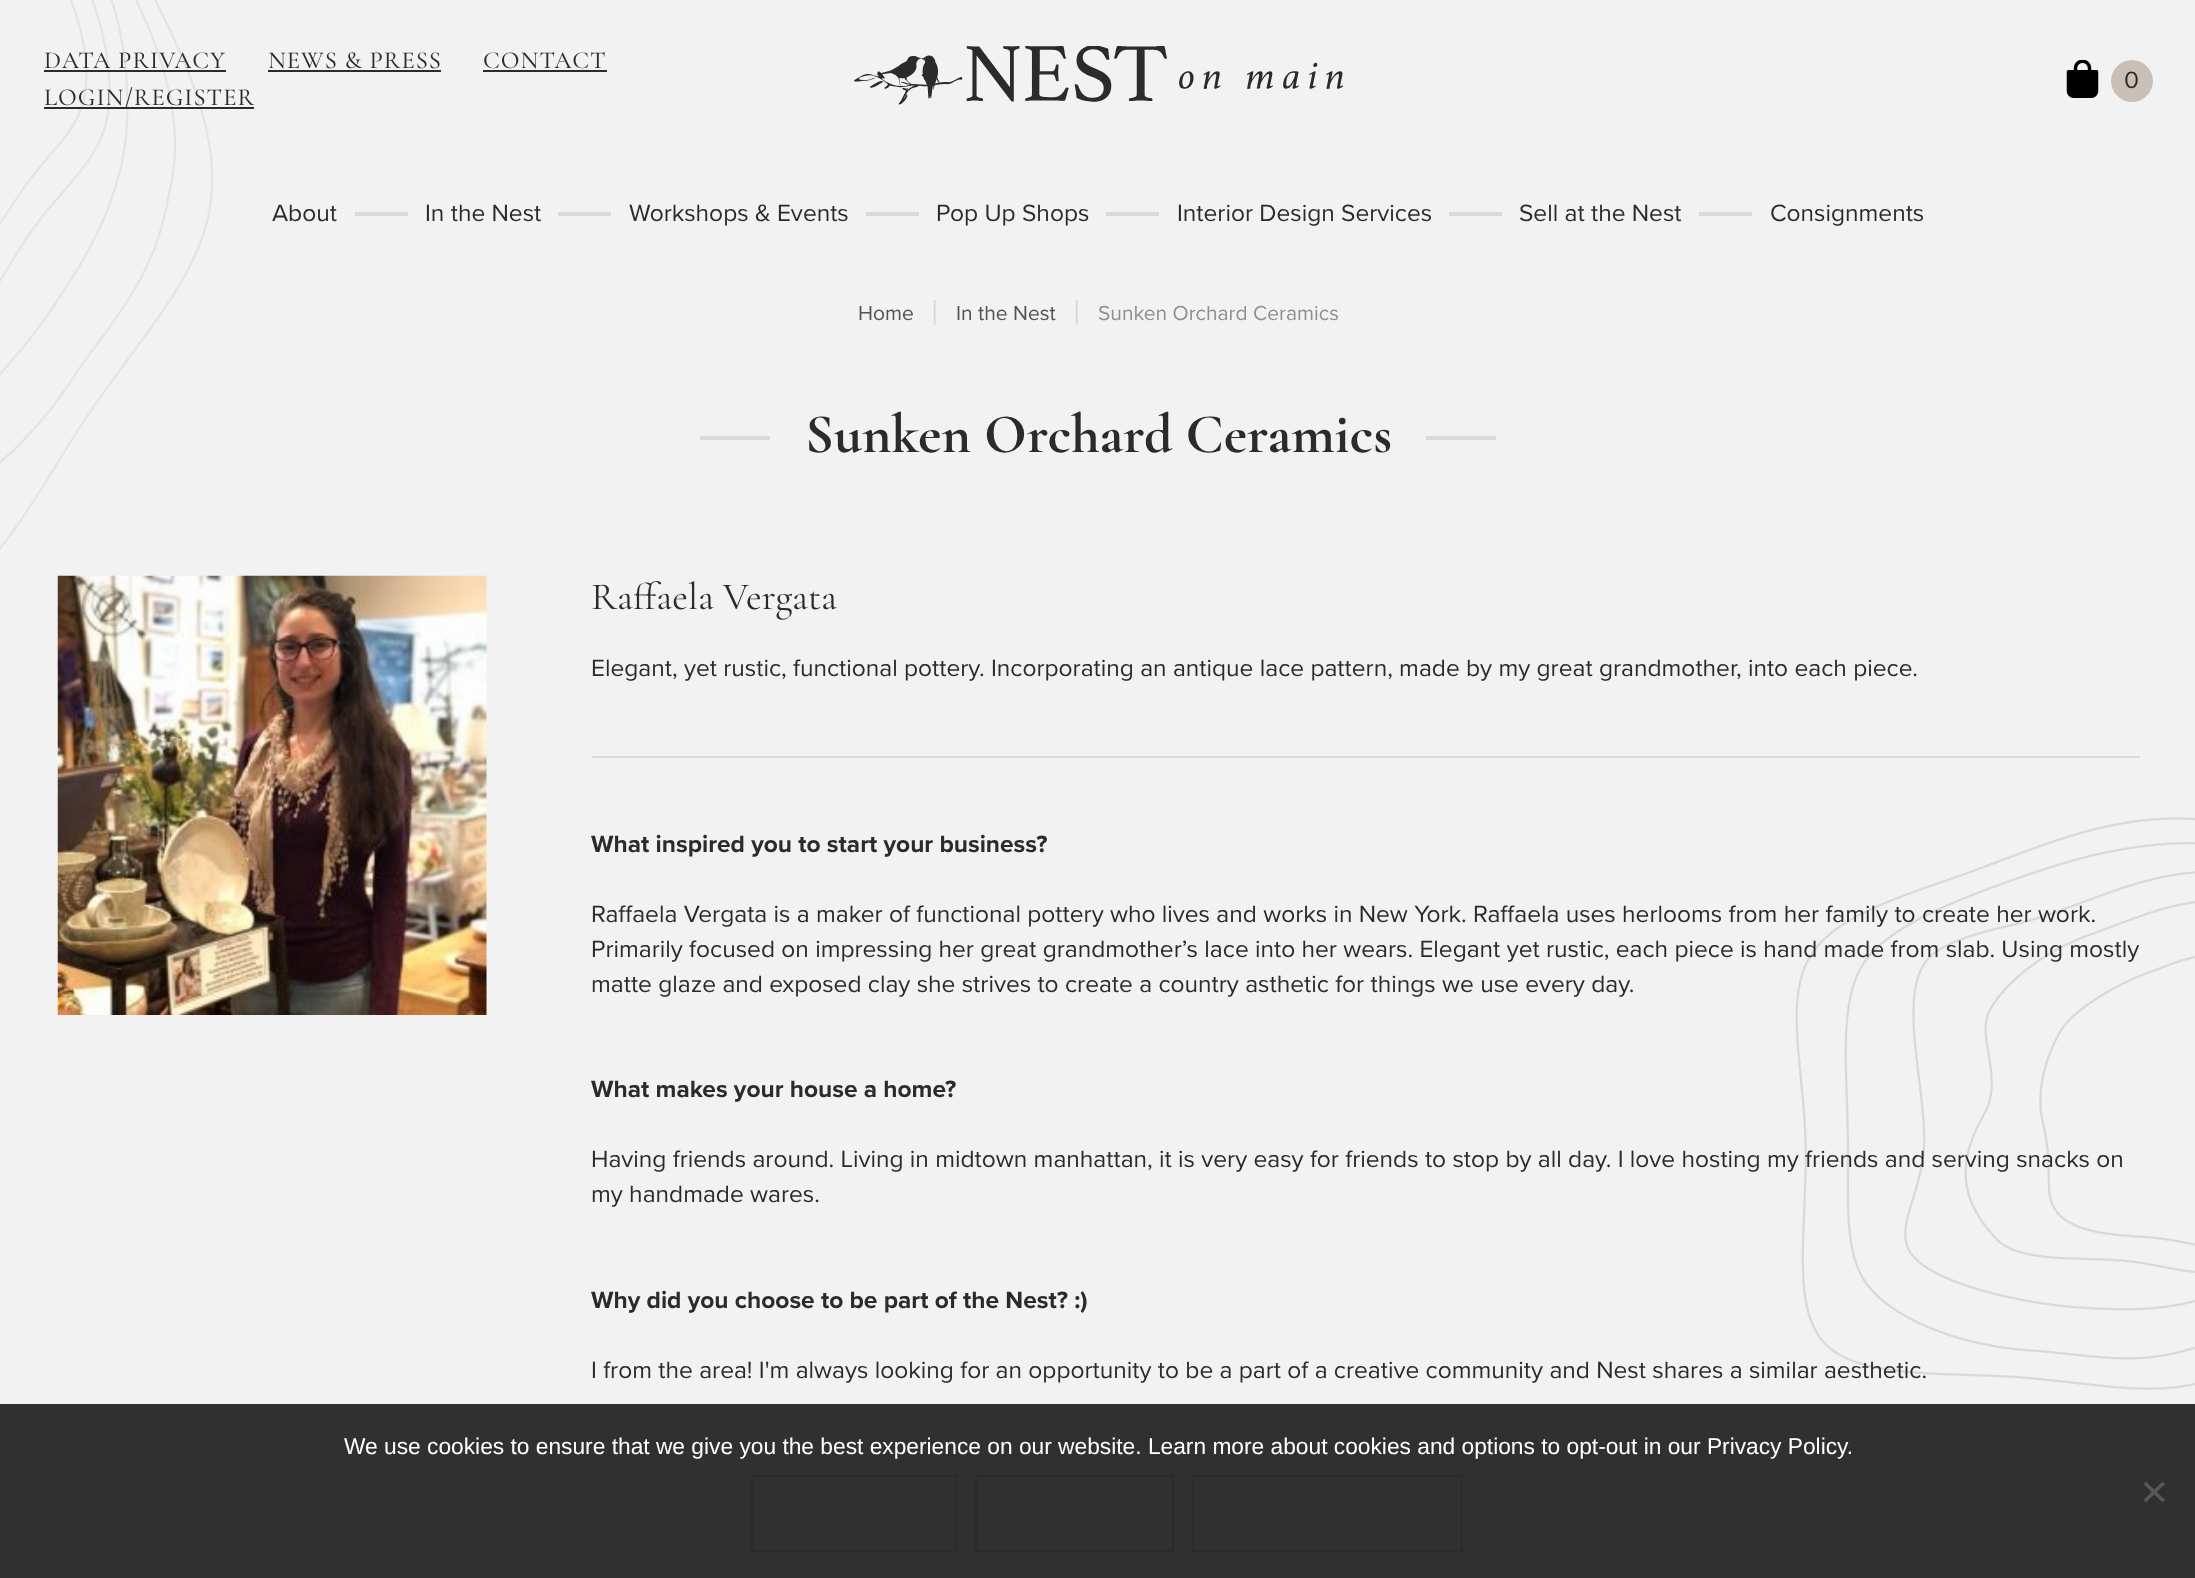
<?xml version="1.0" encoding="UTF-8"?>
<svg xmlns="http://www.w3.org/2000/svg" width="2195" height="1578">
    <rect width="100%" height="100%" fill="#F2F2F2"/>
    <image x="0" y="0" width="214" height="550" href="img_01.png"/>
    <text font-family="Proxima Nova" font-size="24.5" fill="#2B2B2B">
        <tspan x="591" y="922">Raffaela Vergata is a maker of functional pottery who lives and works in New York. Raffaela uses herlooms from her family to create her work.</tspan>
        <tspan x="591" y="957">Primarily focused on impressing her great grandmother’s lace into her wears. Elegant yet rustic, each piece is hand made from slab. Using mostly</tspan>
    </text>
    <text x="591" y="1167" font-family="Proxima Nova" font-size="24.5" fill="#2B2B2B">Having friends around. Living in midtown manhattan, it is very easy for friends to stop by all day. I love hosting my friends and serving snacks on</text>
    <text x="591" y="1378" font-family="Proxima Nova" font-size="24.5" fill="#2B2B2B">I from the area! I'm always looking for an opportunity to be a part of a creative community and Nest shares a similar aesthetic.</text>
    <image x="1795" y="817" width="400" height="573" href="img_02.png"/>
    <text x="44" y="68" font-family="Cormorant Garamond" font-size="24.5" font-weight="500" letter-spacing="1" fill="#2B2B2B">DATA PRIVACY</text>
    <rect x="44" y="70" width="182" height="2" fill="#2B2B2B"/>
    <text x="268" y="68" font-family="Cormorant Garamond" font-size="24.5" font-weight="500" letter-spacing="1" fill="#2B2B2B">NEWS &amp; PRESS</text>
    <rect x="268" y="70" width="173" height="2" fill="#2B2B2B"/>
    <text x="483" y="68" font-family="Cormorant Garamond" font-size="24.5" font-weight="500" letter-spacing="1" fill="#2B2B2B">CONTACT</text>
    <rect x="483" y="70" width="124" height="2" fill="#2B2B2B"/>
    <rect x="44" y="107" width="210" height="2" fill="#2B2B2B"/>
    <text x="44" y="105" font-family="Cormorant Garamond" font-size="24.5" font-weight="500" letter-spacing="1" fill="#2B2B2B">LOGIN/REGISTER</text>
    <image x="854" y="46" width="490" height="59" href="img_03.png"/>
    <image x="2066" y="60" width="33" height="38" href="img_04.png"/>
    <circle cx="2132" cy="81" r="21" fill="#C9BFB7"/>
    <text x="2124" y="88" font-family="Proxima Nova" font-size="24.5" fill="#2B2B2B">0</text>
    <text x="272" y="221" font-family="Proxima Nova" font-size="24.5" fill="#2B2B2B">About</text>
    <rect x="355" y="212" width="53" height="4" fill="#DADADA"/>
    <text x="425" y="221" font-family="Proxima Nova" font-size="24.5" fill="#2B2B2B">In the Nest</text>
    <rect x="558" y="212" width="53" height="4" fill="#DADADA"/>
    <text x="629" y="221" font-family="Proxima Nova" font-size="24.5" fill="#2B2B2B">Workshops &amp; Events</text>
    <rect x="866" y="212" width="53" height="4" fill="#DADADA"/>
    <text x="936" y="221" font-family="Proxima Nova" font-size="24.5" fill="#2B2B2B">Pop Up Shops</text>
    <rect x="1106" y="212" width="53" height="4" fill="#DADADA"/>
    <text x="1177" y="221" font-family="Proxima Nova" font-size="24.5" fill="#2B2B2B">Interior Design Services</text>
    <rect x="1449" y="212" width="53" height="4" fill="#DADADA"/>
    <text x="1519" y="221" font-family="Proxima Nova" font-size="24.5" fill="#2B2B2B">Sell at the Nest</text>
    <rect x="1699" y="212" width="53" height="4" fill="#DADADA"/>
    <text x="1770" y="221" font-family="Proxima Nova" font-size="24.5" fill="#2B2B2B">Consignments</text>
    <text x="858" y="320" font-family="Proxima Nova" font-size="21" fill="#535353">Home</text>
    <text x="931" y="324" font-family="Proxima Nova" font-size="35" fill="#DADADA">|</text>
    <text x="956" y="320" font-family="Proxima Nova" font-size="21" fill="#535353">In the Nest</text>
    <text x="1073" y="324" font-family="Proxima Nova" font-size="35" fill="#DADADA">|</text>
    <text x="1098" y="320" font-family="Proxima Nova" font-size="21" fill="#8F8F8F">Sunken Orchard Ceramics</text>
    <rect x="700" y="436" width="70" height="4" fill="#DADADA"/>
    <text x="805" y="452" font-family="Cormorant Garamond" font-size="56" font-weight="700" fill="#2B2B2B">Sunken Orchard Ceramics</text>
    <rect x="1426" y="436" width="70" height="4" fill="#DADADA"/>
    <image x="57" y="575" width="430" height="440" href="img_05.png"/>
    <text x="591" y="609" font-family="Cormorant Garamond" font-size="38.5" fill="#2B2B2B">Raffaela Vergata</text>
    <text x="591" y="676" font-family="Proxima Nova" font-size="24.5" fill="#2B2B2B">Elegant, yet rustic, functional pottery. Incorporating an antique lace pattern, made by my great grandmother, into each piece.</text>
    <rect x="592" y="756" width="1548" height="2" fill="#DADADA"/>
    <text x="591" y="852" font-family="Proxima Nova" font-size="24.5" font-weight="700" fill="#2B2B2B">What inspired you to start your business?</text>
    <text x="591" y="992" font-family="Proxima Nova" font-size="24.5" fill="#2B2B2B">matte glaze and exposed clay she strives to create a country asthetic for things we use every day.</text>
    <text x="591" y="1097" font-family="Proxima Nova" font-size="24.5" font-weight="700" fill="#2B2B2B">What makes your house a home?</text>
    <text x="591" y="1202" font-family="Proxima Nova" font-size="24.5" fill="#2B2B2B">my handmade wares.</text>
    <text x="591" y="1308" font-family="Proxima Nova" font-size="24.5" font-weight="700" fill="#2B2B2B">Why did you choose to be part of the Nest? :)</text>
    <rect x="0" y="1404" width="2195" height="174" fill="#303030"/>
    <text x="344" y="1454" font-family="Liberation Sans" font-size="22.75" fill="#FFFFFF">We use cookies to ensure that we give you the best experience on our website. Learn more about cookies and options to opt-out in our Privacy Policy.</text>
    <rect x="752" y="1476" width="204" height="75" fill="none" stroke="#2B2B2B" stroke-width="2"/>
    <rect x="976" y="1476" width="197" height="75" fill="none" stroke="#2B2B2B" stroke-width="2"/>
    <rect x="1193" y="1476" width="269" height="75" fill="none" stroke="#2B2B2B" stroke-width="2"/>
    <path d="M 2162.5 1481.5 L 2165 1484 L 2146 1502.5 L 2143.5 1500 Z" fill="#585858"/>
    <path d="M 2143.5 1484 L 2146 1481.5 L 2165 1500 L 2162.5 1502.5 Z" fill="#585858"/>
</svg>
